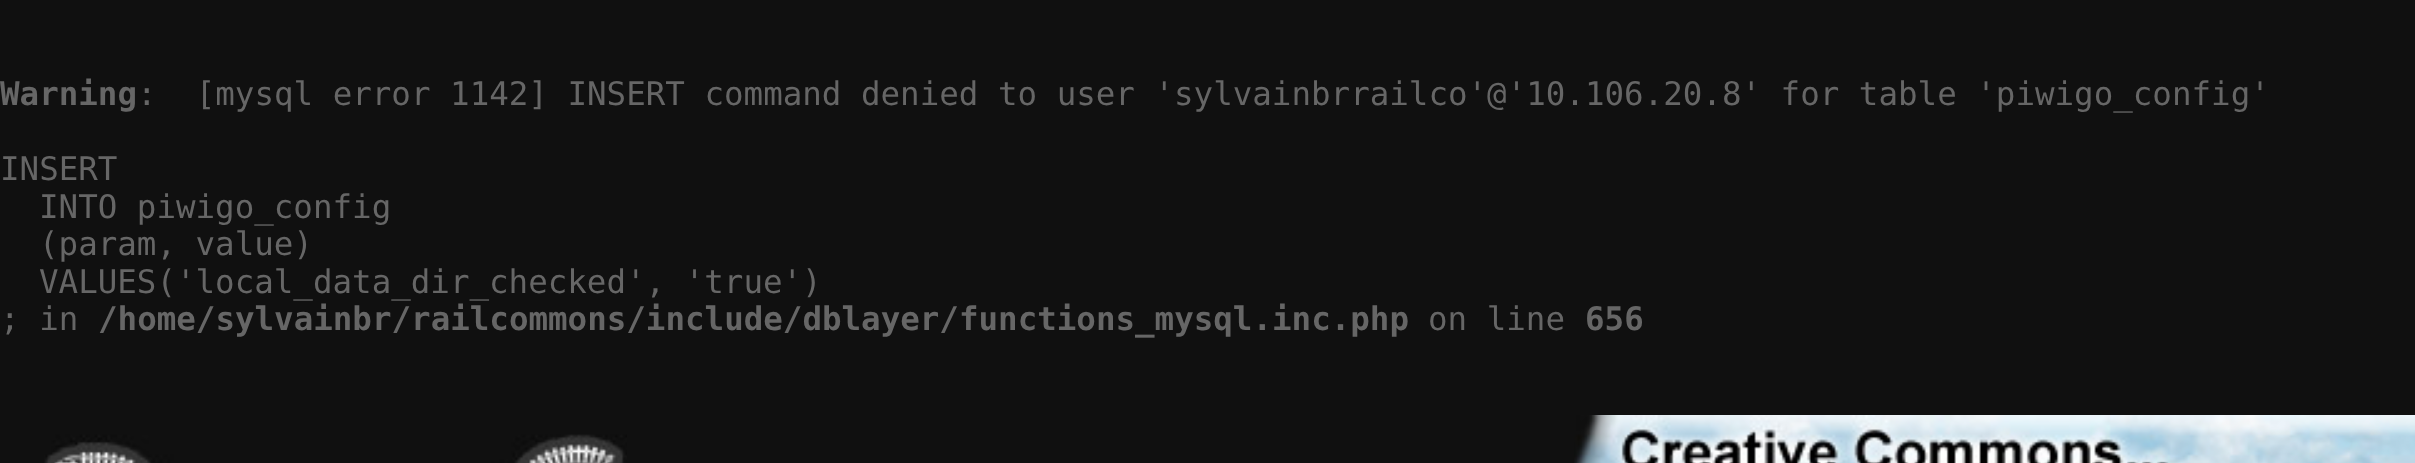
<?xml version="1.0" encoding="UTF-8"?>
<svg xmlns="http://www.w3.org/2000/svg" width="2415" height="463">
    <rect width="100%" height="100%" fill="#101010"/>
    <text x="0" y="105" font-family="DejaVu Sans Mono" font-size="32.5" font-weight="700" fill="#666666">Warning</text>
    <text x="137" y="105" font-family="DejaVu Sans Mono" font-size="32.5" fill="#666666" xml:space="preserve">:  [mysql error 1142] INSERT command denied to user 'sylvainbrrailco'@'10.106.20.8' for table 'piwigo_config'</text>
    <text x="0" y="180" font-family="DejaVu Sans Mono" font-size="32.5" fill="#666666">INSERT</text>
    <text font-family="DejaVu Sans Mono" font-size="32.5" fill="#666666">
        <tspan x="39" y="218">INTO piwigo_config</tspan>
        <tspan x="39" y="255">(param, value)</tspan>
        <tspan x="39" y="293">VALUES('local_data_dir_checked', 'true')</tspan>
    </text>
    <text x="0" y="330" font-family="DejaVu Sans Mono" font-size="32.5" fill="#666666">; in</text>
    <text x="98" y="330" font-family="DejaVu Sans Mono" font-size="32.5" font-weight="700" fill="#666666">/home/sylvainbr/railcommons/include/dblayer/functions_mysql.inc.php</text>
    <text x="1428" y="330" font-family="DejaVu Sans Mono" font-size="32.5" fill="#666666">on line</text>
    <text x="1585" y="330" font-family="DejaVu Sans Mono" font-size="32.5" font-weight="700" fill="#666666">656</text>
    <image x="44" y="434" width="583" height="29" href="img_01.png"/>
    <image x="1574" y="415" width="841" height="48" href="img_02.png"/>
</svg>
